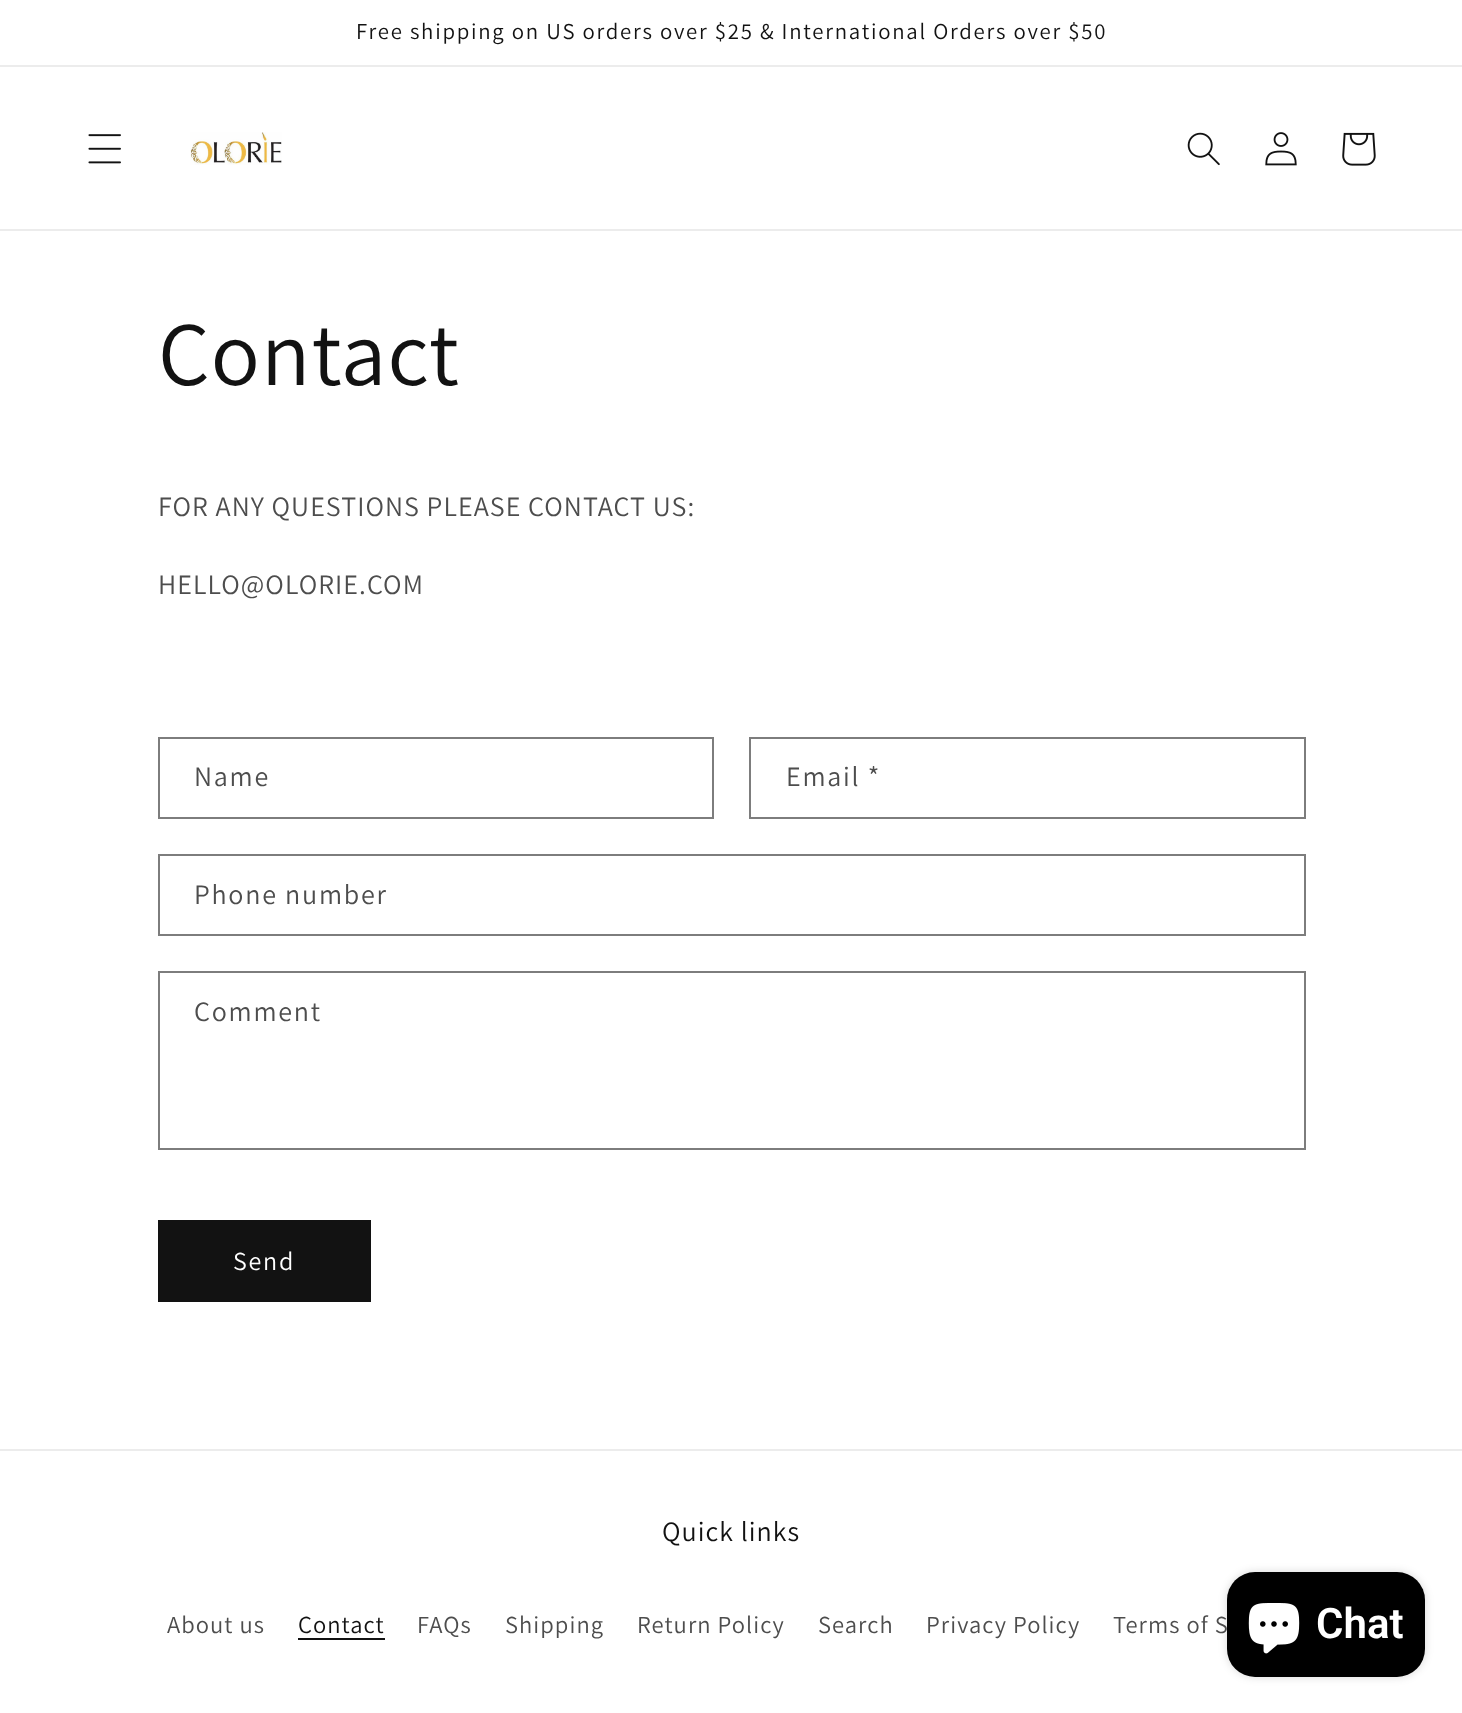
<?xml version="1.0" encoding="UTF-8"?>
<svg xmlns="http://www.w3.org/2000/svg" width="1462" height="1713">
    <defs>
        <filter id="blur1" x="-50%" y="-200%" width="200%" height="500%"><feGaussianBlur stdDeviation="4.5"/></filter>
    </defs>
    <rect width="100%" height="100%" fill="#FFFFFF"/>
    <rect x="0" y="65" width="1462" height="2" fill="#ECECEC"/>
    <text x="356" y="39" font-family="Assistant" font-size="22.75" letter-spacing="1.75" fill="#121212">Free shipping on US orders over $25 &amp; International Orders over $50</text>
    <rect x="0" y="229" width="1462" height="2" fill="#ECECEC"/>
    <image x="88" y="134" width="33" height="30" href="img_01.png"/>
    <image x="190" y="132" width="92" height="33" href="img_02.png"/>
    <image x="1187" y="132" width="33" height="34" href="img_03.png"/>
    <image x="1265" y="132" width="32" height="34" href="img_04.png"/>
    <image x="1342" y="132" width="34" height="34" href="img_05.png"/>
    <text x="158" y="385" font-family="Assistant" font-size="91" letter-spacing="1.05" fill="#121212">Contact</text>
    <text x="158" y="516" font-family="Assistant" font-size="28" letter-spacing="1.05" fill="#4D4D4D">FOR ANY QUESTIONS PLEASE CONTACT US:</text>
    <text x="158" y="594" font-family="Assistant" font-size="28" letter-spacing="1.05" fill="#4D4D4D">HELLO@OLORIE.COM</text>
    <rect x="159" y="738" width="554" height="80" fill="none" stroke="#7D7D7D" stroke-width="2"/>
    <text x="194" y="786" font-family="Assistant" font-size="28" letter-spacing="1.75" fill="#4D4D4D">Name</text>
    <rect x="750" y="738" width="555" height="80" fill="none" stroke="#7D7D7D" stroke-width="2"/>
    <text x="786" y="786" font-family="Assistant" font-size="28" letter-spacing="1.75" fill="#4D4D4D">Email *</text>
    <rect x="159" y="855" width="1146" height="80" fill="none" stroke="#7D7D7D" stroke-width="2"/>
    <text x="194" y="904" font-family="Assistant" font-size="28" letter-spacing="1.75" fill="#4D4D4D">Phone number</text>
    <rect x="159" y="972" width="1146" height="177" fill="none" stroke="#7D7D7D" stroke-width="2"/>
    <text x="194" y="1021" font-family="Assistant" font-size="28" letter-spacing="1.75" fill="#4D4D4D">Comment</text>
    <rect x="158" y="1220" width="213" height="82" fill="#121212"/>
    <text x="233" y="1270" font-family="Assistant" font-size="26" letter-spacing="1.75" fill="#FFFFFF">Send</text>
    <rect x="0" y="1449" width="1462" height="2" fill="#ECECEC"/>
    <text x="662" y="1541" font-family="Assistant" font-size="28" letter-spacing="1.05" fill="#121212">Quick links</text>
    <text x="167" y="1633" font-family="Assistant" font-size="24.5" letter-spacing="1.05" fill="#4D4D4D">About us</text>
    <text x="298" y="1633" font-family="Assistant" font-size="24.5" letter-spacing="1.05" fill="#121212">Contact</text>
    <rect x="298" y="1638" width="87" height="2" fill="#121212"/>
    <text x="417" y="1633" font-family="Assistant" font-size="24.5" letter-spacing="1.05" fill="#4D4D4D">FAQs</text>
    <text x="505" y="1633" font-family="Assistant" font-size="24.5" letter-spacing="1.05" fill="#4D4D4D">Shipping</text>
    <text x="637" y="1633" font-family="Assistant" font-size="24.5" letter-spacing="1.05" fill="#4D4D4D">Return Policy</text>
    <text x="818" y="1633" font-family="Assistant" font-size="24.5" letter-spacing="1.05" fill="#4D4D4D">Search</text>
    <text x="926" y="1633" font-family="Assistant" font-size="24.5" letter-spacing="1.05" fill="#4D4D4D">Privacy Policy</text>
    <text x="1113" y="1633" font-family="Assistant" font-size="24.5" letter-spacing="1.05" fill="#4D4D4D">Terms of S</text>
    <rect x="1227" y="1572" width="198" height="105" rx="28" fill="#000000" fill-opacity="0.15" filter="url(#blur1)"/>
    <rect x="1227" y="1572" width="198" height="105" rx="28" fill="#000000"/>
    <image x="1248" y="1603" width="52" height="51" href="img_06.png"/>
    <text x="1316" y="1638" font-family="Roboto" font-size="42" font-weight="600" fill="#FFFFFF">Chat</text>
</svg>
